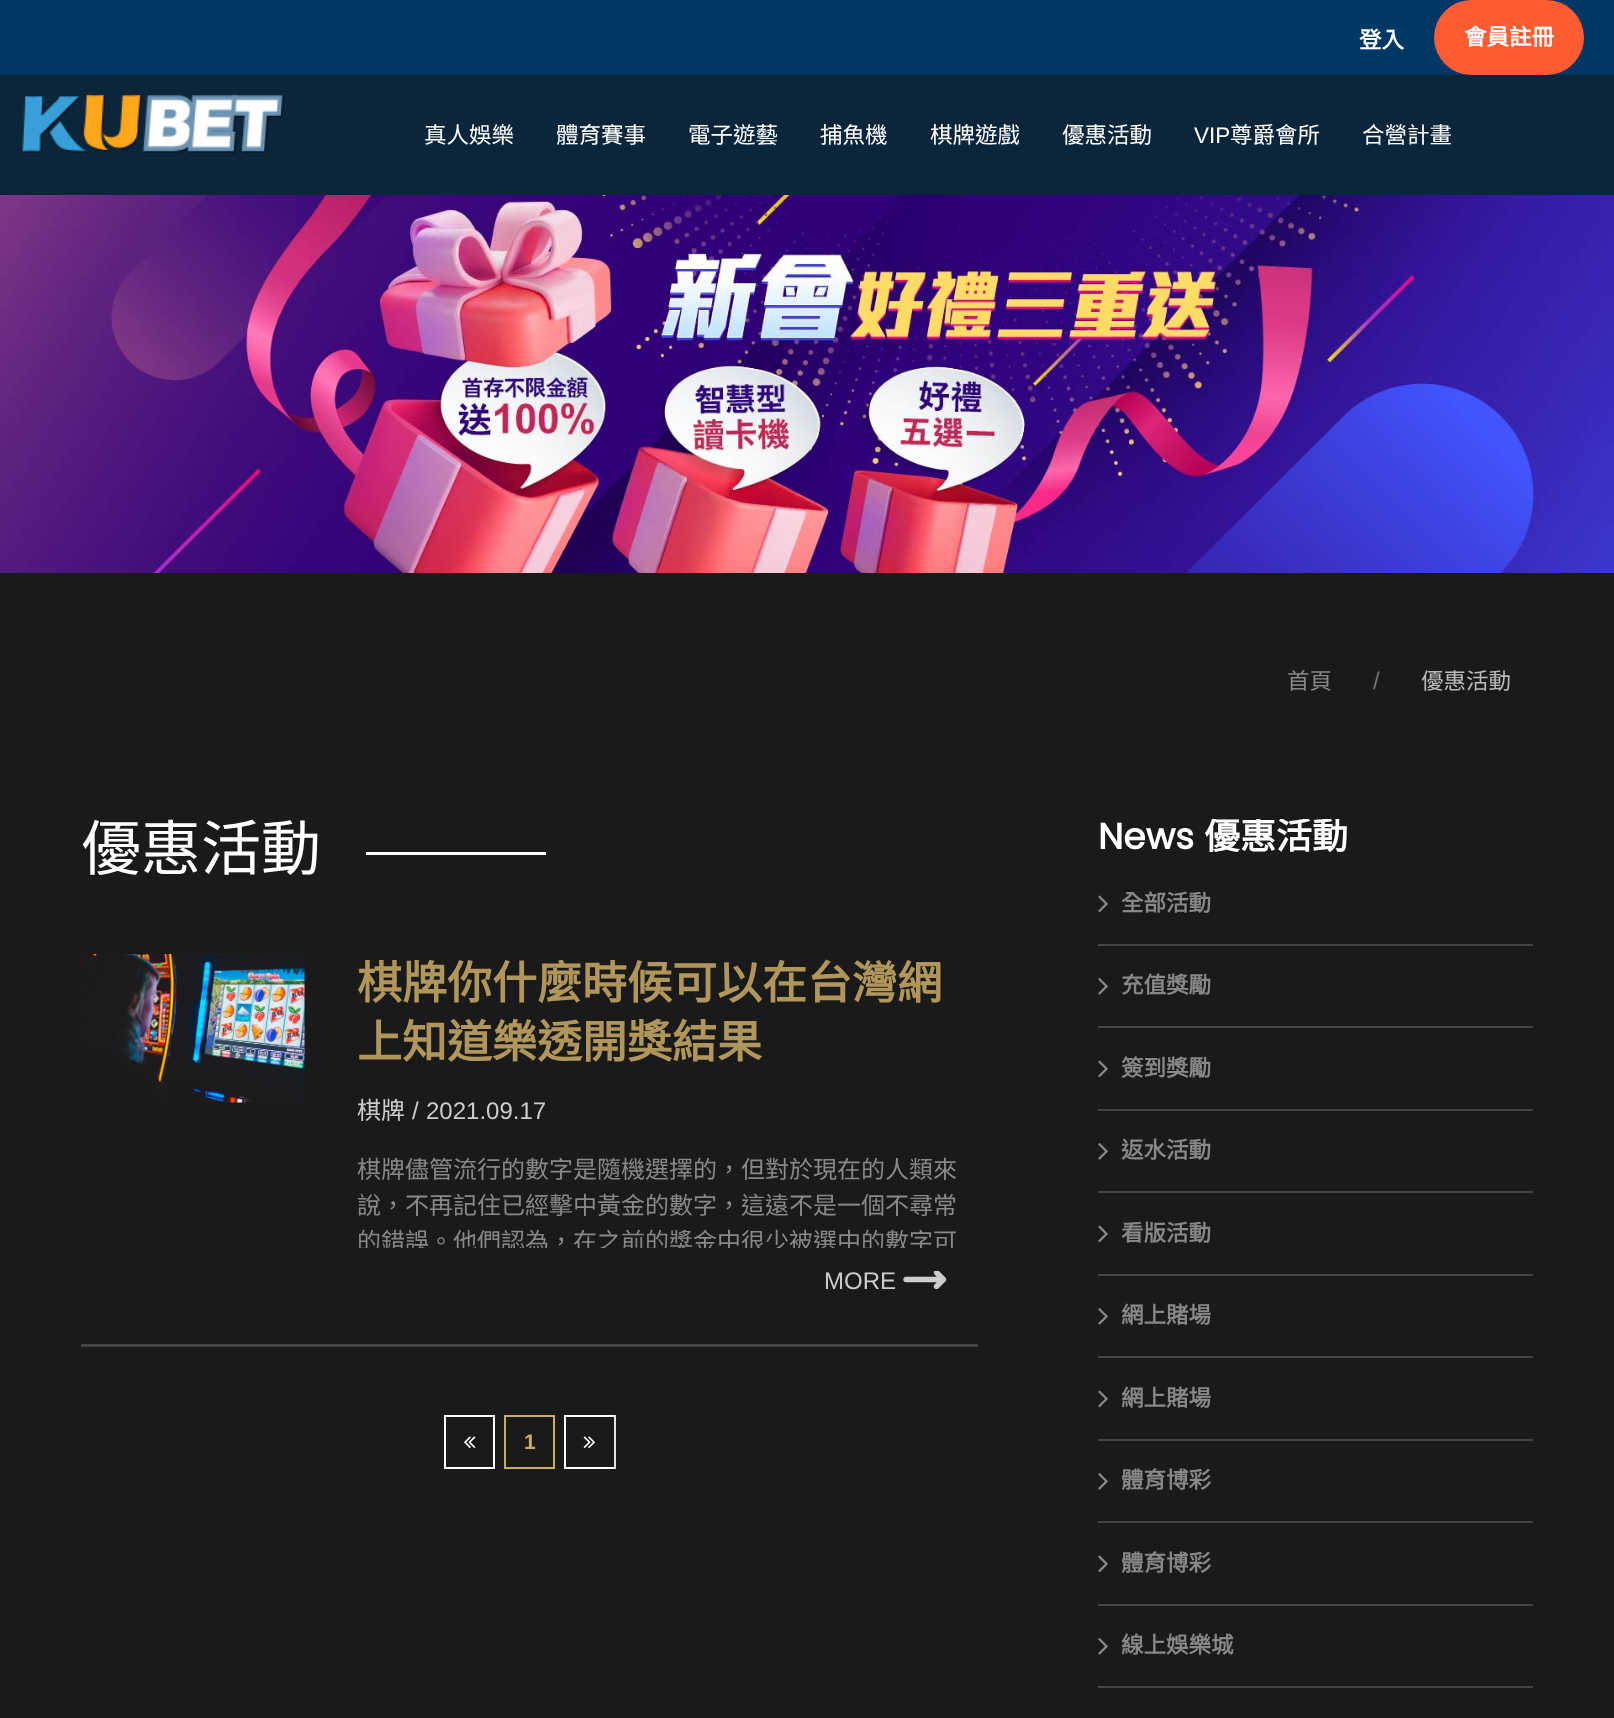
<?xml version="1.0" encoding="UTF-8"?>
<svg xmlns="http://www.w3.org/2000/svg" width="1614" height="1718">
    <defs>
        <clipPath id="clip1"><rect x="357" y="1152" width="614" height="96"/></clipPath>
        <clipPath id="clip2"><rect x="81" y="819" width="1452" height="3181"/></clipPath>
    </defs>
    <rect width="100%" height="100%" fill="#1A1A1A"/>
    <rect x="0" y="0" width="1614" height="75" fill="#013765"/>
    <text x="1359" y="48" font-family="Noto Sans CJK TC" font-size="22.5" font-weight="700" fill="#FFFFFF">登入</text>
    <rect x="1434" y="0" width="150" height="75" rx="37.5" fill="#FF5C33"/>
    <text x="1464" y="45" font-family="Noto Sans CJK TC" font-size="22.5" font-weight="700" fill="#FFFFFF">會員註冊</text>
    <rect x="0" y="75" width="1614" height="120" fill="#0B253B"/>
    <image x="22" y="94" width="262" height="59" href="img_01.png"/>
    <text x="424" y="143" font-family="Noto Sans CJK TC" font-size="22.5" fill="#FFFFFF">真人娛樂</text>
    <text x="556" y="143" font-family="Noto Sans CJK TC" font-size="22.5" fill="#FFFFFF">體育賽事</text>
    <text x="688" y="143" font-family="Noto Sans CJK TC" font-size="22.5" fill="#FFFFFF">電子遊藝</text>
    <text x="820" y="143" font-family="Noto Sans CJK TC" font-size="22.5" fill="#FFFFFF">捕魚機</text>
    <text x="930" y="143" font-family="Noto Sans CJK TC" font-size="22.5" fill="#FFFFFF">棋牌遊戲</text>
    <text x="1062" y="143" font-family="Noto Sans CJK TC" font-size="22.5" fill="#FFFFFF">優惠活動</text>
    <text x="1194" y="143" font-family="Liberation Sans" font-size="22.5" fill="#FFFFFF">VIP</text>
    <text x="1230" y="143" font-family="Noto Sans CJK TC" font-size="22.5" fill="#FFFFFF">尊爵會所</text>
    <text x="1362" y="143" font-family="Noto Sans CJK TC" font-size="22.5" fill="#FFFFFF">合營計畫</text>
    <image x="0" y="195" width="1614" height="378" href="img_02.png"/>
    <text x="1287" y="689" font-family="Noto Sans CJK TC" font-size="22.5" fill="#888888">首頁</text>
    <text x="1373" y="689" font-family="Liberation Sans" font-size="24" fill="#737373">/</text>
    <text x="1421" y="689" font-family="Noto Sans CJK TC" font-size="22.5" fill="#BBBABA">優惠活動</text>
    <text x="81" y="870" font-family="Noto Sans CJK TC" font-size="60" fill="#FFFFFF">優惠活動</text>
    <rect x="366" y="852" width="180" height="3" fill="#FFFFFF"/>
    <rect x="81" y="1344" width="897" height="3" fill="#444444"/>
    <image x="81" y="954" width="224" height="149" href="img_03.png"/>
    <text font-family="Noto Sans CJK TC" font-size="45" font-weight="700" fill="#B0965A">
        <tspan x="357" y="999">棋牌你什麼時候可以在台灣網</tspan>
        <tspan x="357" y="1058">上知道樂透開獎結果</tspan>
    </text>
    <text x="357" y="1119" font-family="Noto Sans CJK TC" font-size="24" fill="#CCCCCC">棋牌</text>
    <text x="412" y="1119" font-family="Liberation Sans" font-size="24" fill="#CCCCCC">/</text>
    <text x="426" y="1119" font-family="Liberation Sans" font-size="24" fill="#CCCCCC">2021.09.17</text>
    <text font-family="Noto Sans CJK TC" font-size="24" fill="#888888">
        <tspan x="357" y="1178">棋牌儘管流行的數字是隨機選擇的，但對於現在的人類來</tspan>
        <tspan x="357" y="1214">說，不再記住已經擊中黃金的數字，這遠不是一個不尋常</tspan>
    </text>
    <g clip-path="url(#clip1)">
        <text x="357" y="1250" font-family="Noto Sans CJK TC" font-size="24" fill="#888888">的錯誤。他們認為，在之前的獎金中很少被選中的數字可</text>
    </g>
    <text x="824" y="1289" font-family="Liberation Sans" font-size="24" fill="#CCCCCC">MORE</text>
    <image x="903" y="1271" width="44" height="18" href="img_04.png"/>
    <rect x="445" y="1416" width="49" height="52" fill="none" stroke="#FFFFFF" stroke-width="2"/>
    <image x="464" y="1436" width="12" height="12" href="img_05.png"/>
    <rect x="505" y="1416" width="49" height="52" fill="none" stroke="#CCAD66" stroke-width="2"/>
    <text x="524" y="1449" font-family="Liberation Sans" font-size="21" font-weight="700" fill="#CCAD66">1</text>
    <rect x="564" y="1415" width="51" height="2" fill="#FFFFFF"/>
    <rect x="614" y="1415" width="2" height="54" fill="#E5E5E5"/>
    <rect x="564" y="1467" width="51" height="2" fill="#FFFFFF"/>
    <rect x="564" y="1415" width="2" height="54" fill="#FFFFFF"/>
    <image x="583" y="1436" width="12" height="12" href="img_06.png"/>
    <text x="1098" y="849" font-family="Poppins" font-size="36" font-weight="700" fill="#FFFFFF">News</text>
    <g clip-path="url(#clip2)">
        <text x="1204" y="849" font-family="Noto Sans CJK TC" font-size="36" font-weight="700" fill="#FFFFFF">優惠活動</text>
    </g>
    <rect x="1098" y="944" width="435" height="2" fill="#444444"/>
    <image x="1098" y="895" width="10" height="18" href="img_07.png"/>
    <text x="1121" y="911" font-family="Noto Sans CJK TC" font-size="22.5" font-weight="700" fill="#888888">全部活動</text>
    <rect x="1098" y="1026" width="435" height="2" fill="#444444"/>
    <image x="1098" y="978" width="10" height="17" href="img_08.png"/>
    <text x="1121" y="993" font-family="Noto Sans CJK TC" font-size="22.5" font-weight="700" fill="#888888">充值獎勵</text>
    <rect x="1098" y="1109" width="435" height="2" fill="#444444"/>
    <image x="1098" y="1060" width="10" height="18" href="img_07.png"/>
    <text x="1121" y="1076" font-family="Noto Sans CJK TC" font-size="22.5" font-weight="700" fill="#888888">簽到獎勵</text>
    <rect x="1098" y="1191" width="435" height="2" fill="#444444"/>
    <image x="1098" y="1143" width="10" height="17" href="img_08.png"/>
    <text x="1121" y="1158" font-family="Noto Sans CJK TC" font-size="22.5" font-weight="700" fill="#888888">返水活動</text>
    <rect x="1098" y="1274" width="435" height="2" fill="#444444"/>
    <image x="1098" y="1225" width="10" height="18" href="img_07.png"/>
    <text x="1121" y="1241" font-family="Noto Sans CJK TC" font-size="22.5" font-weight="700" fill="#888888">看版活動</text>
    <rect x="1098" y="1356" width="435" height="2" fill="#444444"/>
    <image x="1098" y="1308" width="10" height="17" href="img_08.png"/>
    <text x="1121" y="1323" font-family="Noto Sans CJK TC" font-size="22.5" font-weight="700" fill="#888888">網上賭場</text>
    <rect x="1098" y="1439" width="435" height="2" fill="#444444"/>
    <image x="1098" y="1390" width="10" height="18" href="img_07.png"/>
    <text x="1121" y="1406" font-family="Noto Sans CJK TC" font-size="22.5" font-weight="700" fill="#888888">網上賭場</text>
    <rect x="1098" y="1521" width="435" height="2" fill="#444444"/>
    <image x="1098" y="1473" width="10" height="17" href="img_08.png"/>
    <text x="1121" y="1488" font-family="Noto Sans CJK TC" font-size="22.5" font-weight="700" fill="#888888">體育博彩</text>
    <rect x="1098" y="1604" width="435" height="2" fill="#444444"/>
    <image x="1098" y="1555" width="10" height="18" href="img_07.png"/>
    <text x="1121" y="1571" font-family="Noto Sans CJK TC" font-size="22.5" font-weight="700" fill="#888888">體育博彩</text>
    <rect x="1098" y="1686" width="435" height="2" fill="#444444"/>
    <image x="1098" y="1638" width="10" height="17" href="img_08.png"/>
    <text x="1121" y="1653" font-family="Noto Sans CJK TC" font-size="22.5" font-weight="700" fill="#888888">線上娛樂城</text>
</svg>
